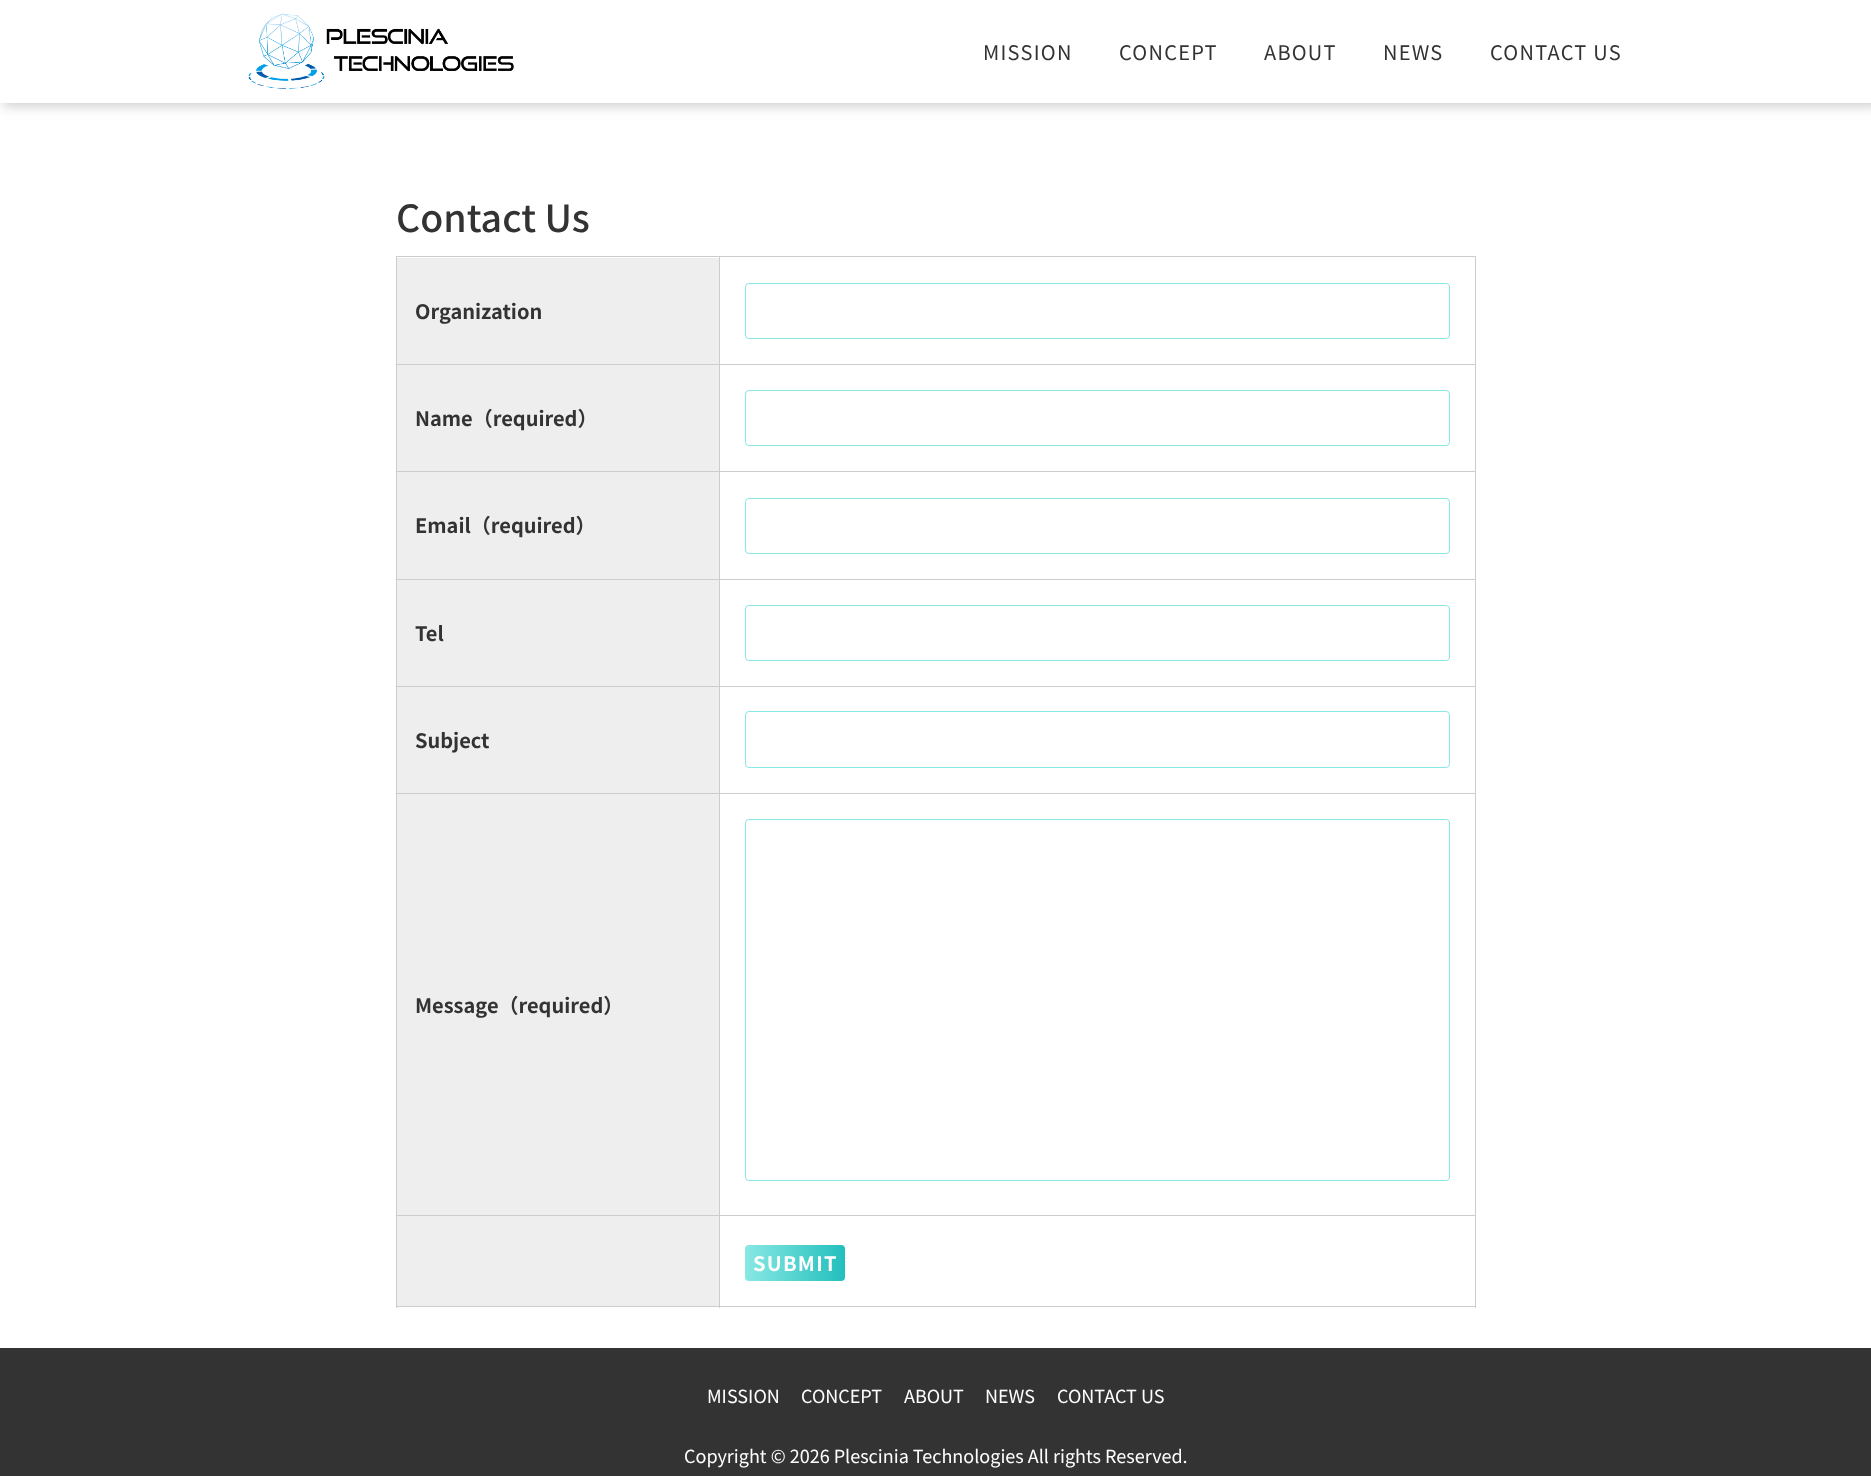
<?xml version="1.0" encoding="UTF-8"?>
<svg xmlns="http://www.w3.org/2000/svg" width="1871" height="1476">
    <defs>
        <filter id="blur1" x="-50%" y="-200%" width="200%" height="500%"><feGaussianBlur stdDeviation="6"/></filter>
        <linearGradient id="g1" gradientUnits="userSpaceOnUse" x1="745" y1="1263" x2="845" y2="1263"><stop offset="0" stop-color="#89E8E4"/><stop offset="1" stop-color="#22BFBD"/></linearGradient>
    </defs>
    <rect width="100%" height="100%" fill="#FFFFFF"/>
    <rect x="3" y="-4" width="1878" height="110" fill="#CCCCCC" filter="url(#blur1)"/>
    <rect x="0" y="0" width="1871" height="103" fill="#FFFFFF"/>
    <image x="248" y="13" width="266" height="76" href="img_01.png"/>
    <text x="983" y="60" font-family="Noto Sans JP" font-size="20" letter-spacing="1.25" fill="#333333">MISSION</text>
    <text x="1119" y="60" font-family="Noto Sans JP" font-size="20" letter-spacing="1.25" fill="#333333">CONCEPT</text>
    <text x="1264" y="60" font-family="Noto Sans JP" font-size="20" letter-spacing="1.25" fill="#333333">ABOUT</text>
    <text x="1383" y="60" font-family="Noto Sans JP" font-size="20" letter-spacing="1.25" fill="#333333">NEWS</text>
    <text x="1490" y="60" font-family="Noto Sans JP" font-size="20" letter-spacing="1.25" fill="#333333">CONTACT US</text>
    <text x="396" y="232" font-family="Noto Sans JP" font-size="37.5" font-weight="500" fill="#333333">Contact Us</text>
    <rect x="396" y="256" width="1080" height="1" fill="#CCCCCC"/>
    <rect x="1475" y="256" width="1" height="1052" fill="#CCCCCC"/>
    <rect x="397" y="258" width="322" height="106" fill="#EEEEEE"/>
    <rect x="719" y="1306" width="757" height="1" fill="#CCCCCC"/>
    <rect x="719" y="1215" width="1" height="93" fill="#CCCCCC"/>
    <rect x="719" y="1215" width="757" height="1" fill="#CCCCCC"/>
    <rect x="719" y="793" width="1" height="423" fill="#CCCCCC"/>
    <rect x="719" y="793" width="757" height="1" fill="#CCCCCC"/>
    <rect x="719" y="686" width="1" height="108" fill="#CCCCCC"/>
    <rect x="719" y="686" width="757" height="1" fill="#CCCCCC"/>
    <rect x="719" y="579" width="1" height="109" fill="#CCCCCC"/>
    <rect x="719" y="579" width="757" height="1" fill="#CCCCCC"/>
    <rect x="719" y="471" width="1" height="109" fill="#CCCCCC"/>
    <rect x="719" y="471" width="757" height="1" fill="#CCCCCC"/>
    <rect x="719" y="364" width="1" height="109" fill="#CCCCCC"/>
    <rect x="719" y="364" width="757" height="1" fill="#CCCCCC"/>
    <rect x="719" y="256" width="1" height="109" fill="#CCCCCC"/>
    <rect x="396" y="1306" width="324" height="1" fill="#CCCCCC"/>
    <rect x="396" y="1215" width="1" height="93" fill="#CCCCCC"/>
    <rect x="396" y="1215" width="324" height="1" fill="#CCCCCC"/>
    <rect x="396" y="793" width="1" height="423" fill="#CCCCCC"/>
    <rect x="396" y="793" width="324" height="1" fill="#CCCCCC"/>
    <rect x="396" y="686" width="1" height="108" fill="#CCCCCC"/>
    <rect x="396" y="686" width="324" height="1" fill="#CCCCCC"/>
    <rect x="396" y="579" width="1" height="109" fill="#CCCCCC"/>
    <rect x="396" y="579" width="324" height="1" fill="#CCCCCC"/>
    <rect x="396" y="471" width="1" height="109" fill="#CCCCCC"/>
    <rect x="396" y="471" width="324" height="1" fill="#CCCCCC"/>
    <rect x="396" y="364" width="1" height="109" fill="#CCCCCC"/>
    <rect x="396" y="364" width="324" height="1" fill="#CCCCCC"/>
    <rect x="396" y="256" width="1" height="109" fill="#CCCCCC"/>
    <text x="415" y="319" font-family="Noto Sans JP" font-size="20" font-weight="700" fill="#333333">Organization</text>
    <rect x="745.5" y="283.5" width="704" height="55" rx="3.5" fill="none" stroke="#89E8E4"/>
    <rect x="397" y="365" width="322" height="106" fill="#EEEEEE"/>
    <text x="415" y="426" font-family="Noto Sans JP" font-size="20" font-weight="700" fill="#333333">Name（required）</text>
    <rect x="745.5" y="390.5" width="704" height="55" rx="3.5" fill="none" stroke="#89E8E4"/>
    <rect x="397" y="472" width="322" height="107" fill="#EEEEEE"/>
    <text x="415" y="533" font-family="Noto Sans JP" font-size="20" font-weight="700" fill="#333333">Email（required）</text>
    <rect x="745.5" y="498.5" width="704" height="55" rx="3.5" fill="none" stroke="#89E8E4"/>
    <rect x="397" y="580" width="322" height="106" fill="#EEEEEE"/>
    <text x="415" y="641" font-family="Noto Sans JP" font-size="20" font-weight="700" fill="#333333">Tel</text>
    <rect x="745.5" y="605.5" width="704" height="55" rx="3.5" fill="none" stroke="#89E8E4"/>
    <rect x="397" y="687" width="322" height="106" fill="#EEEEEE"/>
    <text x="415" y="748" font-family="Noto Sans JP" font-size="20" font-weight="700" fill="#333333">Subject</text>
    <rect x="745.5" y="711.5" width="704" height="56" rx="3.5" fill="none" stroke="#89E8E4"/>
    <rect x="397" y="794" width="322" height="421" fill="#EEEEEE"/>
    <text x="415" y="1013" font-family="Noto Sans JP" font-size="20" font-weight="700" fill="#333333">Message（required）</text>
    <rect x="745.5" y="819.5" width="704" height="361" rx="3.5" fill="none" stroke="#89E8E4"/>
    <rect x="397" y="1216" width="322" height="90" fill="#EEEEEE"/>
    <rect x="745" y="1245" width="100" height="36" rx="4" fill="url(#g1)"/>
    <text x="753" y="1271" font-family="Noto Sans JP" font-size="20" font-weight="700" letter-spacing="1.25" fill="#FFFFFF">SUBMIT</text>
    <rect x="0" y="1348" width="1871" height="128" fill="#333333"/>
    <text x="707" y="1403" font-family="Noto Sans JP" font-size="18" fill="#FFFFFF">MISSION</text>
    <text x="801" y="1403" font-family="Noto Sans JP" font-size="18" fill="#FFFFFF">CONCEPT</text>
    <text x="904" y="1403" font-family="Noto Sans JP" font-size="18" fill="#FFFFFF">ABOUT</text>
    <text x="985" y="1403" font-family="Noto Sans JP" font-size="18" fill="#FFFFFF">NEWS</text>
    <text x="1057" y="1403" font-family="Noto Sans JP" font-size="18" fill="#FFFFFF">CONTACT US</text>
    <text x="684" y="1463" font-family="Noto Sans JP" font-size="18" fill="#FFFFFF">Copyright © 2026 Plescinia Technologies All rights Reserved.</text>
</svg>
